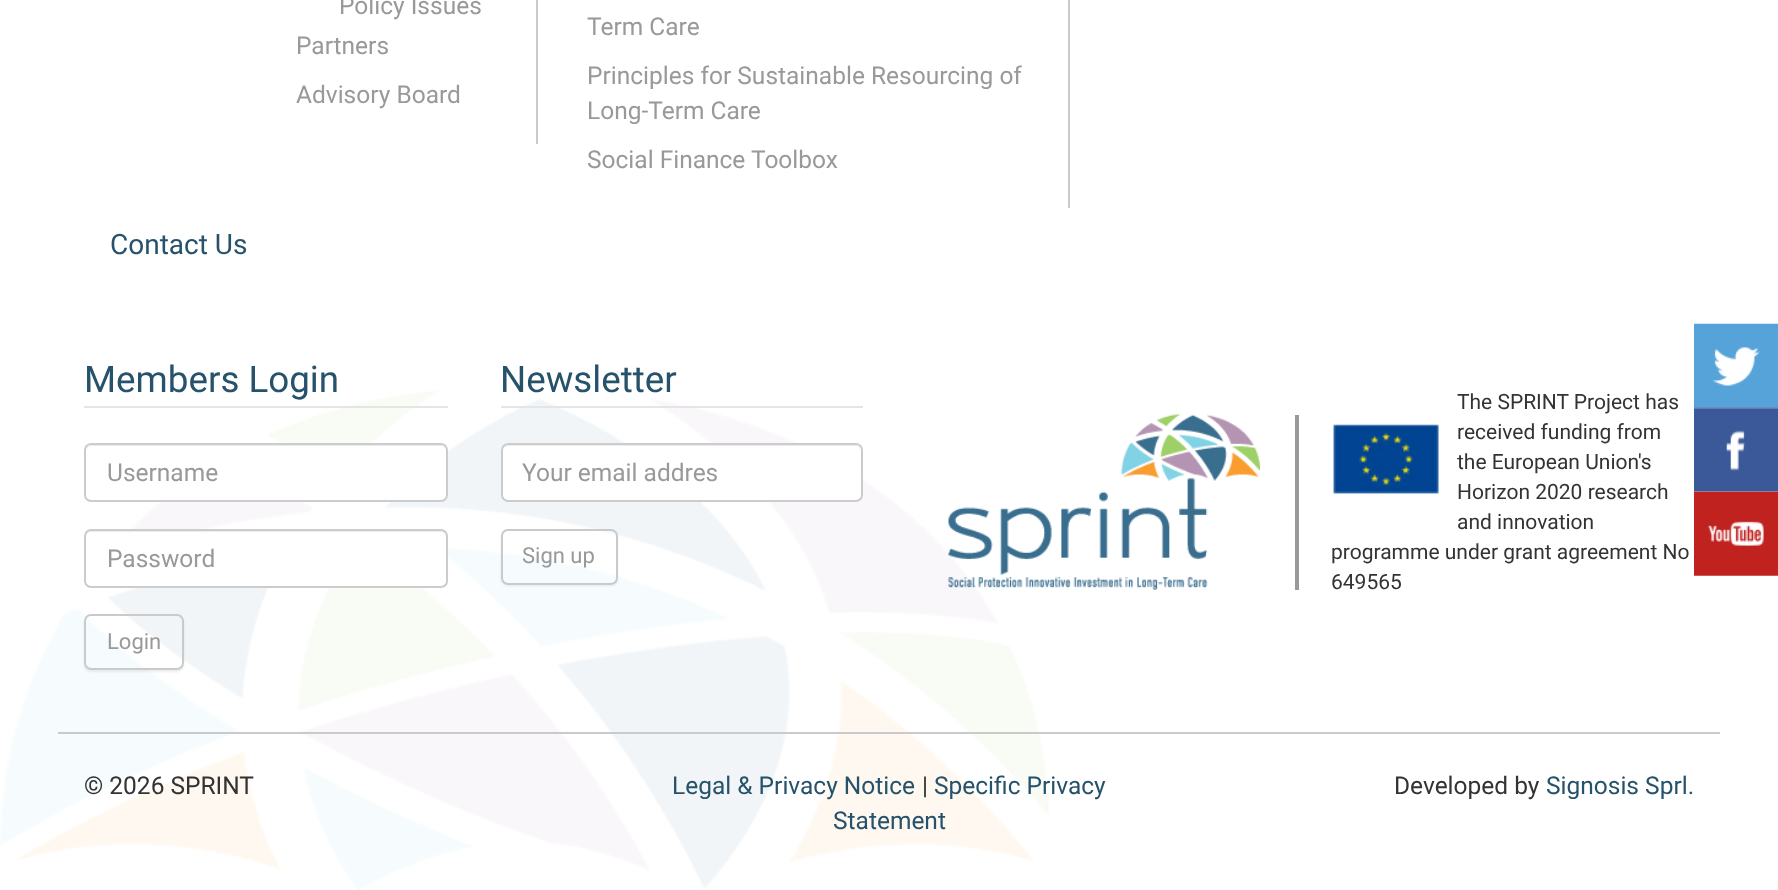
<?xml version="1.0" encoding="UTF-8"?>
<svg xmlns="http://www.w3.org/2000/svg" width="1778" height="890">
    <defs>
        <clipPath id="clip1"><path d="M 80 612 H 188 V 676 H 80 Z M 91 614 H 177 C 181 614 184 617 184 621 V 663 C 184 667 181 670 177 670 H 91 C 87 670 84 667 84 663 V 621 C 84 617 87 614 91 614 Z" clip-rule="evenodd"/></clipPath>
        <filter id="blur1" x="-50%" y="-200%" width="200%" height="500%"><feGaussianBlur stdDeviation="1"/></filter>
        <clipPath id="clip2"><path d="M 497 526 H 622 V 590 H 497 Z M 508 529 H 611 C 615 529 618 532 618 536 V 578 C 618 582 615 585 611 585 H 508 C 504 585 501 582 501 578 V 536 C 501 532 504 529 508 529 Z" clip-rule="evenodd"/></clipPath>
    </defs>
    <rect width="100%" height="100%" fill="#FFFFFF"/>
    <image x="0" y="390" width="1049" height="500" href="img_01.png"/>
    <rect x="536" y="0" width="2" height="144" fill="#CACACA"/>
    <text x="339" y="14" font-family="Roboto" font-size="24.5" fill="#999999">Policy Issues</text>
    <text x="296" y="54" font-family="Roboto" font-size="24.5" fill="#999999">Partners</text>
    <text x="296" y="103" font-family="Roboto" font-size="24.5" fill="#999999">Advisory Board</text>
    <rect x="1068" y="0" width="2" height="208" fill="#CACACA"/>
    <text x="587" y="35" font-family="Roboto" font-size="24.5" fill="#999999">Term Care</text>
    <text font-family="Roboto" font-size="24.5" fill="#999999">
        <tspan x="587" y="84">Principles for Sustainable Resourcing of</tspan>
        <tspan x="587" y="119">Long-Term Care</tspan>
    </text>
    <text x="587" y="168" font-family="Roboto" font-size="24.5" fill="#999999">Social Finance Toolbox</text>
    <text x="110" y="254" font-family="Roboto" font-size="28" fill="#26526B">Contact Us</text>
    <rect x="84" y="406" width="364" height="2" fill="#E5E5E5"/>
    <text x="84" y="392" font-family="Roboto" font-size="36.75" fill="#26526B">Members Login</text>
    <rect x="84" y="443" width="364" height="59" rx="7" fill="#FFFFFF"/>
    <path d="M 91 446 H 441 C 444 446 446 449 446 452 C 446 449 445 445 441 445 H 91 C 87 445 86 449 86 452 C 86 449 88 446 91 446 Z" fill="#ECECEC"/>
    <rect x="85" y="444" width="362" height="57" rx="6" fill="none" stroke="#CCCCCC" stroke-width="2"/>
    <text x="107" y="481" font-family="Roboto" font-size="24.5" fill="#999999">Username</text>
    <rect x="84" y="529" width="364" height="59" rx="7" fill="#FFFFFF"/>
    <path d="M 91 532 H 441 C 444 532 446 534 446 537 C 446 534 445 530 441 530 H 91 C 87 530 86 534 86 537 C 86 534 88 532 91 532 Z" fill="#ECECEC"/>
    <rect x="85" y="530" width="362" height="57" rx="6" fill="none" stroke="#CCCCCC" stroke-width="2"/>
    <text x="107" y="567" font-family="Roboto" font-size="24.5" fill="#999999">Password</text>
    <g clip-path="url(#clip1)">
        <rect x="84" y="616" width="100" height="56" rx="7" fill="#000000" fill-opacity="0.07" filter="url(#blur1)"/>
    </g>
    <rect x="85" y="615" width="98" height="54" rx="6" fill="none" stroke="#CACACA" stroke-width="2"/>
    <text x="107" y="649" font-family="Roboto" font-size="22" fill="#999999">Login</text>
    <rect x="501" y="406" width="362" height="2" fill="#E5E5E5"/>
    <text x="500" y="392" font-family="Roboto" font-size="36.75" fill="#26526B">Newsletter</text>
    <rect x="501" y="443" width="362" height="59" rx="7" fill="#FFFFFF"/>
    <path d="M 508 446 H 856 C 859 446 861 449 861 452 C 861 449 860 445 856 445 H 507 C 503 445 502 449 502 452 C 502 449 505 446 508 446 Z" fill="#ECECEC"/>
    <rect x="502" y="444" width="360" height="57" rx="6" fill="none" stroke="#CCCCCC" stroke-width="2"/>
    <text x="522" y="481" font-family="Roboto" font-size="24.5" fill="#999999">Your email addres</text>
    <g clip-path="url(#clip2)">
        <rect x="501" y="530" width="117" height="56" rx="7" fill="#000000" fill-opacity="0.07" filter="url(#blur1)"/>
    </g>
    <rect x="502" y="530" width="115" height="54" rx="6" fill="none" stroke="#CACACA" stroke-width="2"/>
    <text x="522" y="563" font-family="Roboto" font-size="22" fill="#999999">Sign up</text>
    <rect x="1295" y="415" width="4" height="175" fill="#999999"/>
    <image x="948" y="414" width="312" height="176" href="img_02.png"/>
    <text x="1457" y="409" font-family="Roboto" font-size="21" fill="#333333">The SPRINT Project has</text>
    <image x="1333" y="424" width="107" height="70" href="img_03.png"/>
    <text font-family="Roboto" font-size="21" fill="#333333">
        <tspan x="1457" y="439">received funding from</tspan>
        <tspan x="1457" y="469">the European Union's</tspan>
        <tspan x="1457" y="499">Horizon 2020 research</tspan>
        <tspan x="1457" y="529">and innovation</tspan>
    </text>
    <text font-family="Roboto" font-size="21" fill="#333333">
        <tspan x="1331" y="559">programme under grant agreement No</tspan>
        <tspan x="1331" y="589">649565</tspan>
    </text>
    <rect x="58" y="732" width="1662" height="2" fill="#CACACA"/>
    <text x="84" y="794" font-family="Roboto" font-size="24.5" fill="#333333">© 2026 SPRINT</text>
    <text x="672" y="794" font-family="Roboto" font-size="24.5" fill="#26526B">Legal &amp; Privacy Notice</text>
    <text x="922" y="794" font-family="Roboto" font-size="24.5" fill="#333333">|</text>
    <text x="934" y="794" font-family="Roboto" font-size="24.5" fill="#26526B">Specific Privacy</text>
    <text x="833" y="829" font-family="Roboto" font-size="24.5" fill="#26526B">Statement</text>
    <text x="1394" y="794" font-family="Roboto" font-size="24.5" fill="#333333">Developed by</text>
    <text x="1546" y="794" font-family="Roboto" font-size="24.5" fill="#26526B">Signosis Sprl.</text>
    <image x="1694" y="323" width="84" height="85" href="img_04.png"/>
    <image x="1694" y="407" width="84" height="85" href="img_05.png"/>
    <image x="1694" y="491" width="84" height="85" href="img_06.png"/>
</svg>
